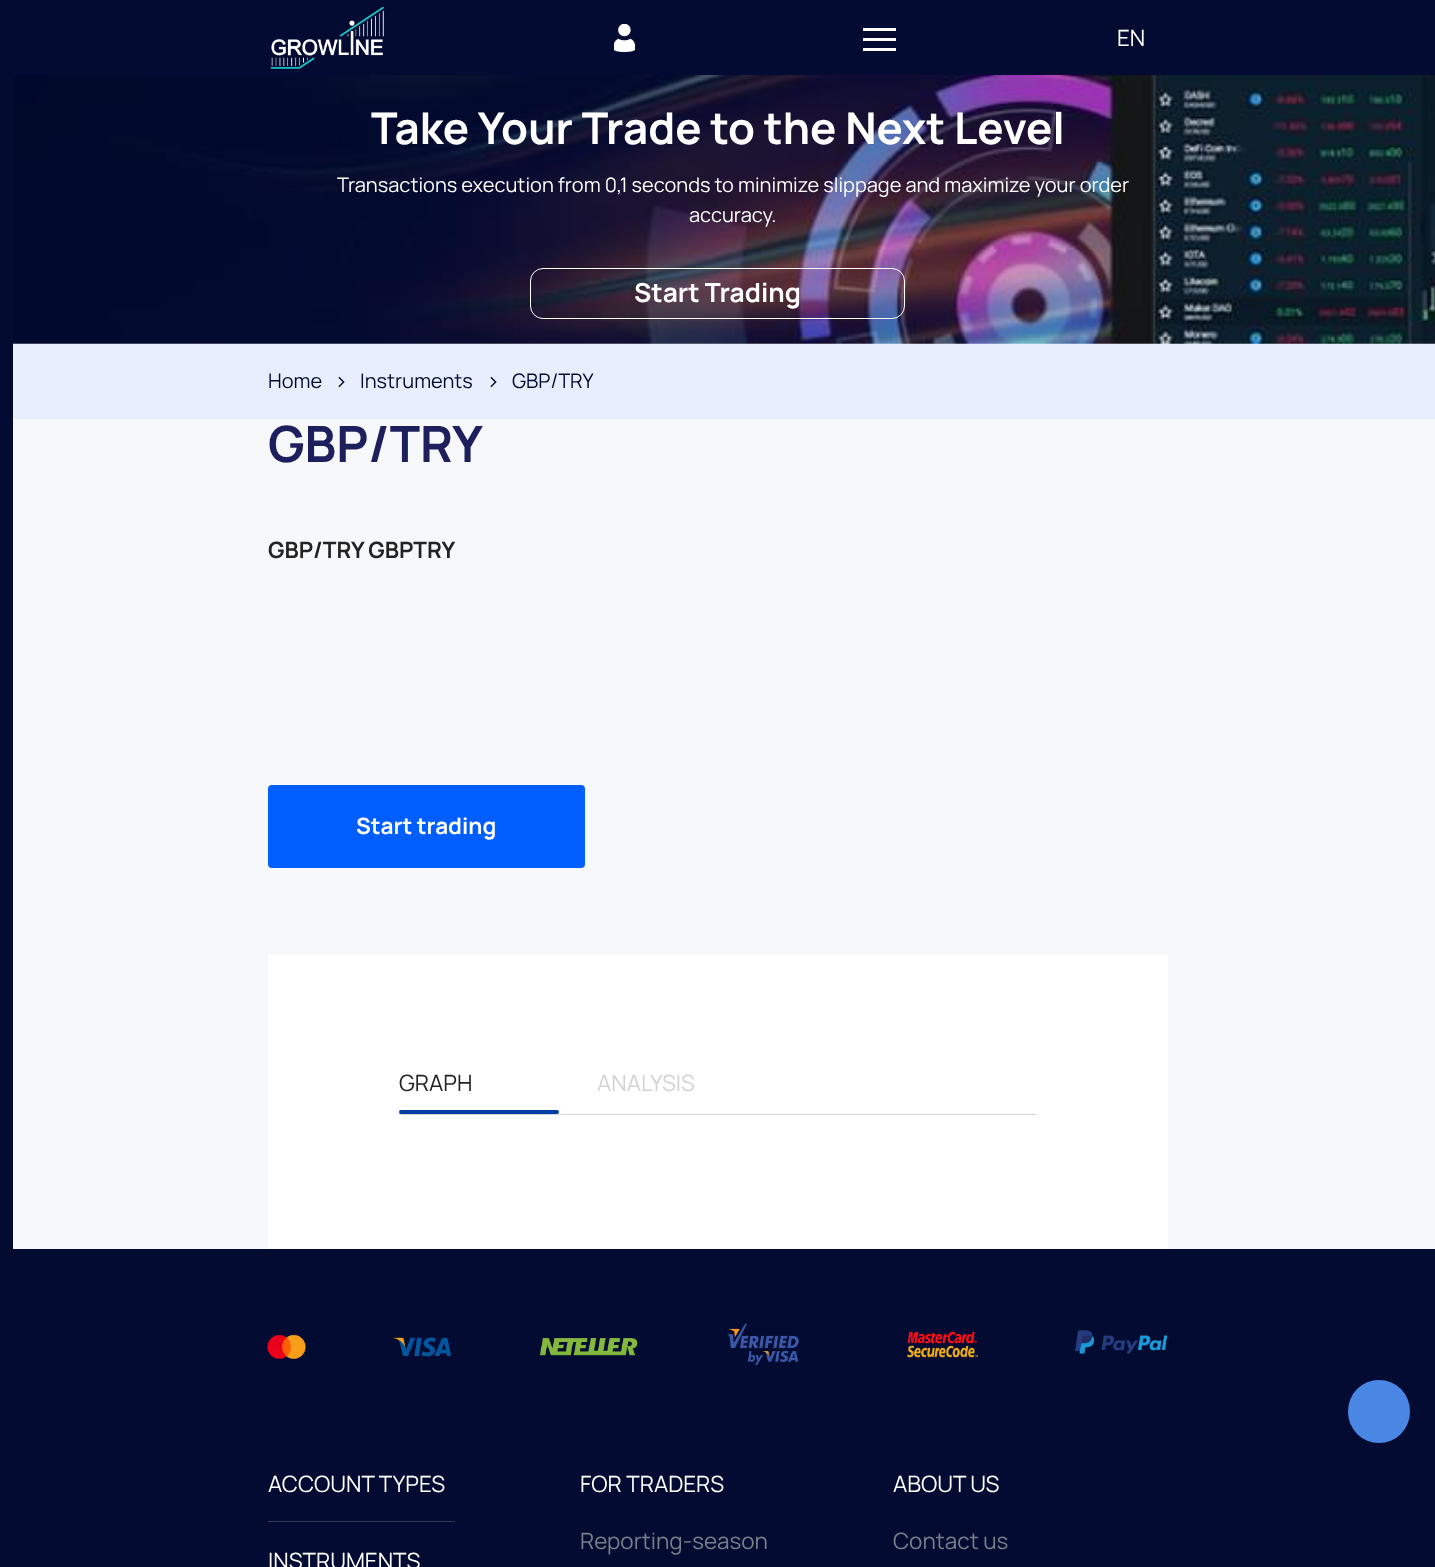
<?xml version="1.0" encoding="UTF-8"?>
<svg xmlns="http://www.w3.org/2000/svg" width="1435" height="1567">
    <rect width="100%" height="100%" fill="#FFFFFF"/>
    <rect x="0" y="0" width="1435" height="75" fill="#030B32"/>
    <image x="270" y="7" width="114" height="62" href="img_01.png"/>
    <image x="614" y="24" width="22" height="28" href="img_02.png"/>
    <rect x="863" y="28" width="33" height="3" fill="#FFFFFF"/>
    <rect x="863" y="38" width="33" height="3" fill="#FFFFFF"/>
    <rect x="863" y="48" width="33" height="3" fill="#FFFFFF"/>
    <text x="1117" y="46" font-family="Manrope" font-size="22.5" fill="#FFFFFF">EN</text>
    <rect x="0" y="75" width="13" height="1492" fill="#030B32"/>
    <image x="13" y="75" width="1422" height="269" href="img_03.png"/>
    <text x="371" y="144" font-family="Manrope" font-size="43.75" font-weight="700" fill="#FFFFFF">Take Your Trade to the Next Level</text>
    <text x="337" y="192" font-family="Manrope" font-size="20" fill="#FFFFFF">Transactions execution from 0,1 seconds to minimize slippage and maximize your order</text>
    <text x="689" y="222" font-family="Manrope" font-size="20" fill="#FFFFFF">accuracy.</text>
    <rect x="530.5" y="268.5" width="374" height="50" rx="12.5" fill="none" stroke="#FFFFFF"/>
    <text x="634" y="302" font-family="Manrope" font-size="26.25" font-weight="700" fill="#FFFFFF">Start Trading</text>
    <rect x="13" y="344" width="1422" height="75" fill="#E9EEFF"/>
    <text x="268" y="388" font-family="Manrope" font-size="20" fill="#030B32">Home</text>
    <text x="334" y="389" font-family="Manrope" font-size="22.5" fill="#030B32">›</text>
    <text x="360" y="388" font-family="Manrope" font-size="20" fill="#030B32">Instruments</text>
    <text x="486" y="389" font-family="Manrope" font-size="22.5" fill="#030B32">›</text>
    <text x="512" y="388" font-family="Manrope" font-size="20" fill="#030B32">GBP/TRY</text>
    <rect x="13" y="419" width="1422" height="830" fill="#F7F8FA"/>
    <text x="268" y="462" font-family="Manrope" font-size="50" font-weight="700" fill="#1E205E">GBP/TRY</text>
    <text x="268" y="558" font-family="Manrope" font-size="22.5" font-weight="700" fill="#232323">GBP/TRY GBPTRY</text>
    <rect x="268" y="785" width="317" height="83" rx="4" fill="#005EFF"/>
    <text x="356" y="834" font-family="Manrope" font-size="22.5" font-weight="700" fill="#FFFFFF">Start trading</text>
    <rect x="268" y="955" width="900" height="294" fill="#FFFFFF"/>
    <rect x="399" y="1114" width="637" height="1" fill="#D3D3D3"/>
    <text x="399" y="1091" font-family="Manrope" font-size="22.5" fill="#232323">GRAPH</text>
    <rect x="399" y="1110" width="160" height="4" rx="2" fill="#003DA6"/>
    <text x="597" y="1091" font-family="Manrope" font-size="22.5" fill="#D3D3D3">ANALYSIS</text>
    <rect x="13" y="1249" width="1422" height="318" fill="#030B32"/>
    <image x="267" y="1323" width="901" height="42" href="img_04.png"/>
    <rect x="268" y="1521" width="187" height="1" fill="#333C52"/>
    <text x="268" y="1492" font-family="Manrope" font-size="22.5" fill="#FFFFFF">ACCOUNT TYPES</text>
    <text x="580" y="1492" font-family="Manrope" font-size="22.5" fill="#FFFFFF">FOR TRADERS</text>
    <text x="580" y="1549" font-family="Manrope" font-size="22.5" fill="#797E89">Reporting-season</text>
    <text x="893" y="1492" font-family="Manrope" font-size="22.5" fill="#FFFFFF">ABOUT US</text>
    <text x="893" y="1549" font-family="Manrope" font-size="22.5" fill="#797E89">Contact us</text>
    <text x="268" y="1569" font-family="Manrope" font-size="22.5" fill="#FFFFFF">INSTRUMENTS</text>
    <rect x="1348" y="1380" width="62" height="63" rx="31" fill="#4A87E5"/>
</svg>
